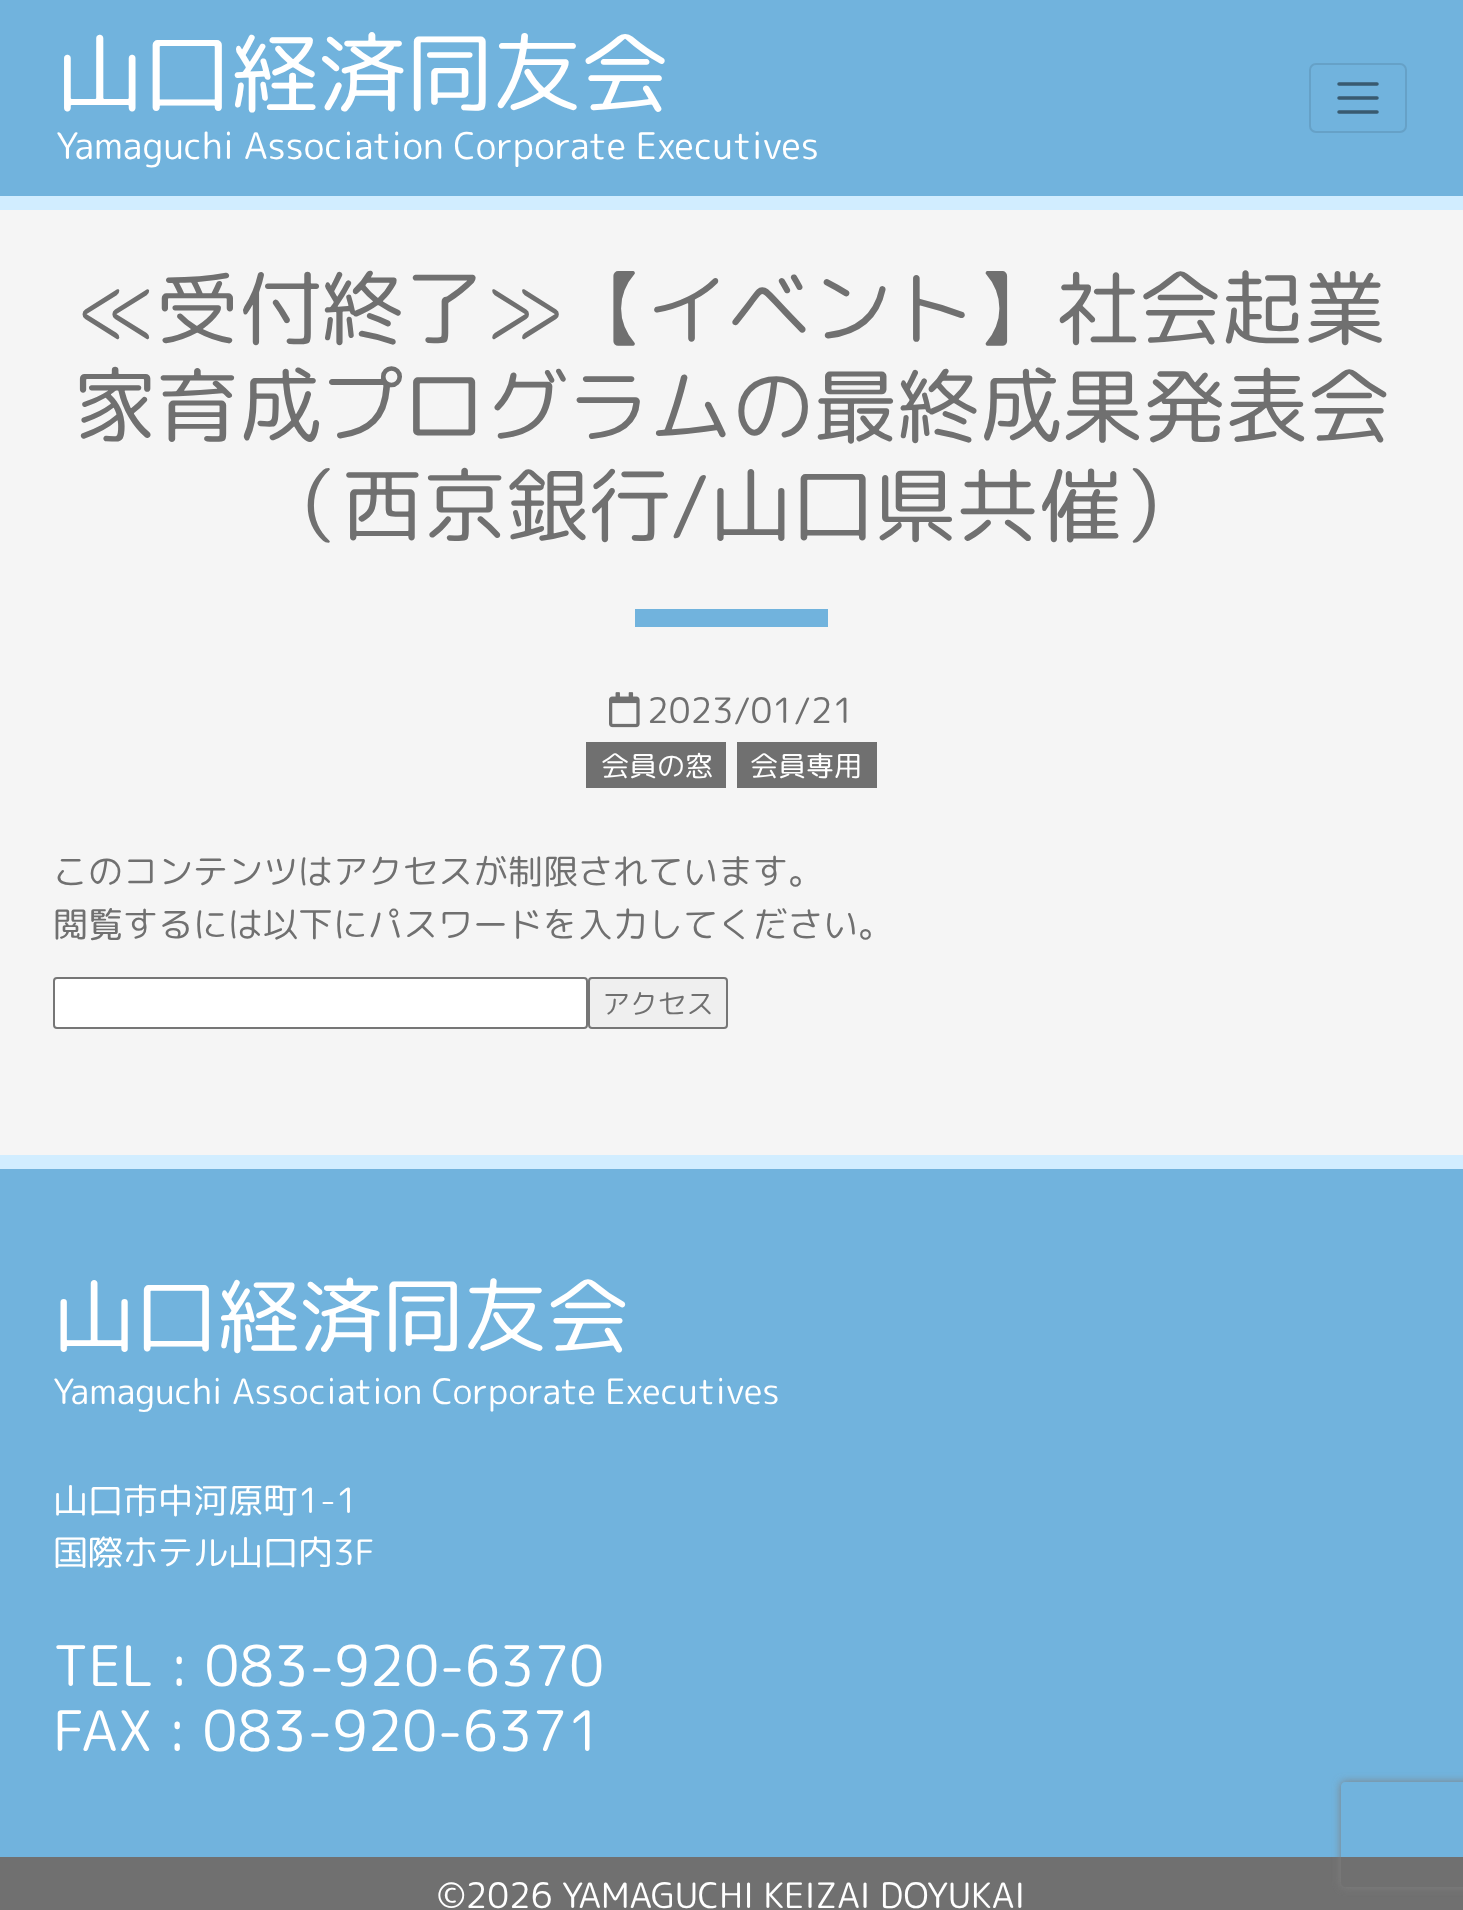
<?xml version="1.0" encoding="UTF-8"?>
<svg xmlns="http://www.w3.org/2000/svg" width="1463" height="1910">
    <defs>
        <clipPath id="clip1"><path d="M 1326 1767 H 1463 V 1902 H 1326 Z M 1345 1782 H 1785 C 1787 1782 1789 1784 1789 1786 V 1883 C 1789 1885 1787 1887 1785 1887 H 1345 C 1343 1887 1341 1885 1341 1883 V 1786 C 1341 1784 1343 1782 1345 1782 Z" clip-rule="evenodd"/></clipPath>
        <filter id="blur1" x="-50%" y="-200%" width="200%" height="500%"><feGaussianBlur stdDeviation="4.5"/></filter>
    </defs>
    <rect width="100%" height="100%" fill="#F5F5F5"/>
    <rect x="0" y="0" width="1463" height="196" fill="#71B3DD"/>
    <text x="56" y="105" font-family="'Rounded Mplus 1c'" font-size="87.5" fill="#FFFFFF">山口経済同友会</text>
    <text x="56" y="159" font-family="'Rounded Mplus 1c'" font-size="36.75" fill="#FFFFFF">Yamaguchi Association Corporate Executives</text>
    <rect x="1310" y="64" width="96" height="68" rx="6" fill="none" stroke="#66A1C7" stroke-width="2"/>
    <path d="M 1339 84 H 1377 M 1339 98 H 1377 M 1339 112 H 1377" fill="none" stroke="#395A6F" stroke-width="3.5" stroke-linecap="round"/>
    <rect x="0" y="196" width="1463" height="14" fill="#D1EDFF"/>
    <rect x="0" y="1155" width="1463" height="14" fill="#D1EDFF"/>
    <text x="78" y="338" font-family="'Rounded Mplus 1c'" font-size="82.25" fill="#707070">≪受付終了≫【イベント】社会起業</text>
    <text x="74" y="436" font-family="'Rounded Mplus 1c'" font-size="82.25" fill="#707070">家育成プログラムの最終成果発表会</text>
    <text x="259" y="535" font-family="'Rounded Mplus 1c'" font-size="82.25" fill="#707070">（西京銀行/山口県共催）</text>
    <rect x="635" y="609" width="193" height="18" fill="#71B3DD"/>
    <image x="609" y="692" width="31" height="36" href="img_01.png"/>
    <text x="647" y="723" font-family="'Rounded Mplus 1c'" font-size="35" fill="#707070">2023/01/21</text>
    <rect x="586" y="742" width="140" height="46" fill="#707070"/>
    <text x="601" y="776" font-family="'Rounded Mplus 1c'" font-size="28" fill="#FFFFFF">会員の窓</text>
    <rect x="737" y="742" width="140" height="46" fill="#707070"/>
    <text x="750" y="776" font-family="'Rounded Mplus 1c'" font-size="28" fill="#FFFFFF">会員専用</text>
    <text font-family="'Rounded Mplus 1c'" font-size="35" fill="#707070">
        <tspan x="53" y="884">このコンテンツはアクセスが制限されています。</tspan>
        <tspan x="53" y="937">閲覧するには以下にパスワードを入力してください。</tspan>
    </text>
    <rect x="54" y="978" width="533" height="50" rx="3" fill="#FFFFFF" stroke="#767676" stroke-width="2"/>
    <rect x="589" y="978" width="138" height="50" rx="3" fill="#EFEFEF" stroke="#767676" stroke-width="2"/>
    <text x="602" y="1014" font-family="'Rounded Mplus 1c'" font-size="28" fill="#707070">アクセス</text>
    <rect x="0" y="1169" width="1463" height="688" fill="#71B3DD"/>
    <text x="53" y="1346" font-family="'Rounded Mplus 1c'" font-size="82.25" fill="#FFFFFF">山口経済同友会</text>
    <text x="53" y="1404" font-family="'Rounded Mplus 1c'" font-size="35" fill="#FFFFFF">Yamaguchi Association Corporate Executives</text>
    <text font-family="'Rounded Mplus 1c'" font-size="35" fill="#FFFFFF">
        <tspan x="53" y="1513">山口市中河原町1-1</tspan>
        <tspan x="53" y="1565">国際ホテル山口内3F</tspan>
    </text>
    <text font-family="'Rounded Mplus 1c'" font-size="56" fill="#FFFFFF">
        <tspan x="53" y="1686">TEL : 083-920-6370</tspan>
        <tspan x="53" y="1751">FAX : 083-920-6371</tspan>
    </text>
    <rect x="0" y="1857" width="1463" height="53" fill="#707070"/>
    <text x="437" y="1908" font-family="'Rounded Mplus 1c'" font-size="35" fill="#FFFFFF">©2026 YAMAGUCHI KEIZAI DOYUKAI</text>
    <g clip-path="url(#clip1)">
        <rect x="1341" y="1782" width="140" height="105" rx="4" fill="#808080" filter="url(#blur1)"/>
    </g>
</svg>
